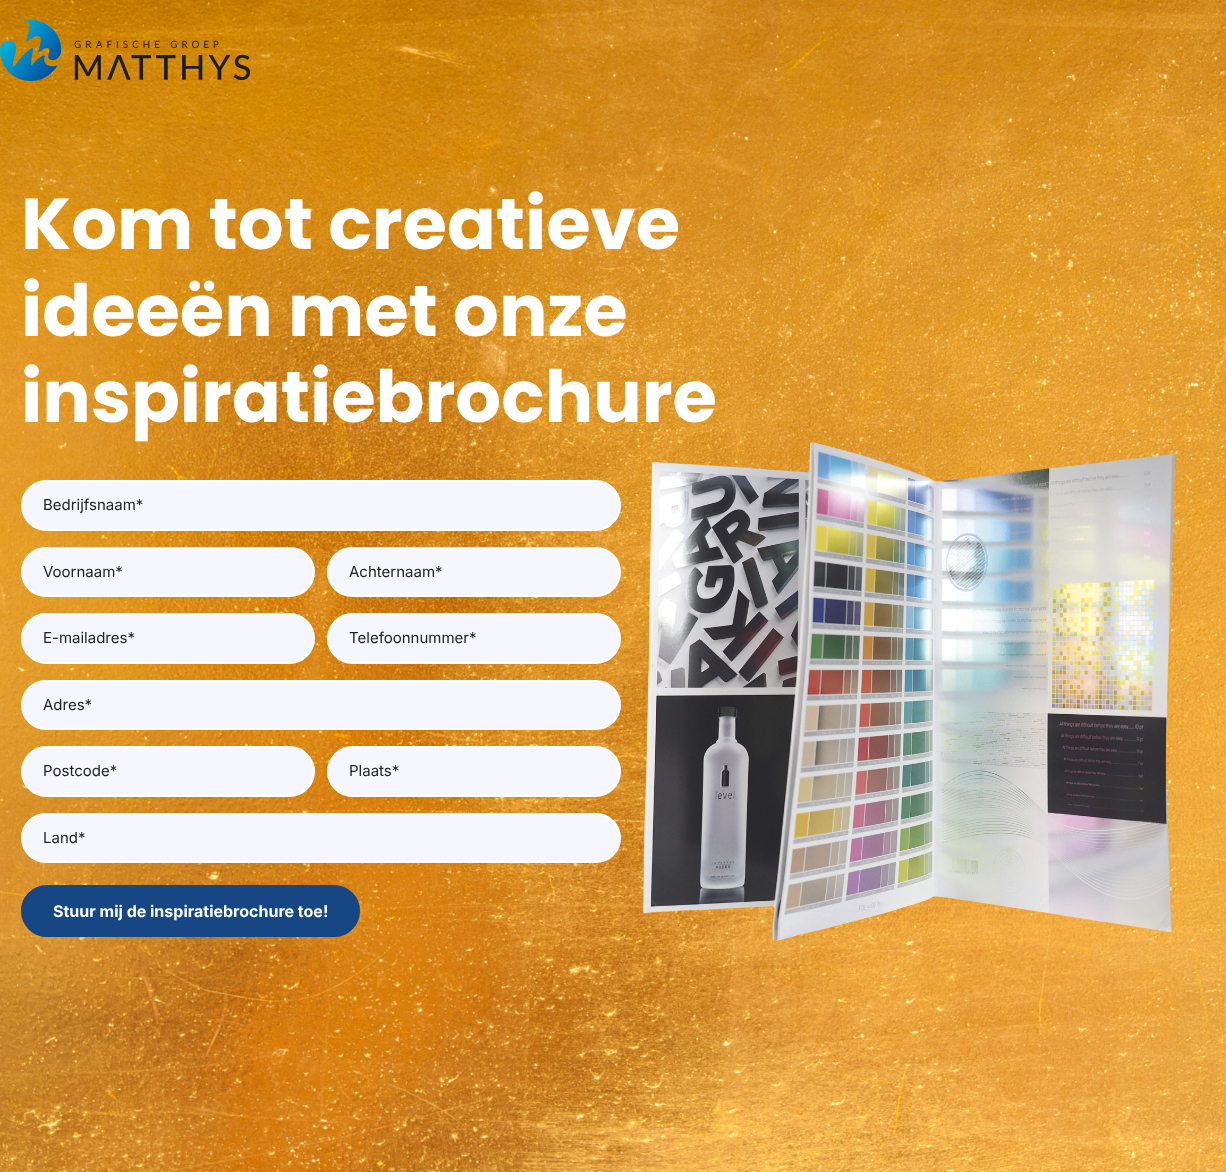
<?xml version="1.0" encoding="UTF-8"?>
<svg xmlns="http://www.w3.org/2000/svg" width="1226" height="1172">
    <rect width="100%" height="100%" fill="#FFFFFF"/>
    <image x="0" y="0" width="1226" height="1172" href="img_02.png"/>
    <image x="0" y="20" width="250" height="61" href="img_01.png"/>
    <text font-family="Poppins" font-size="72" font-weight="700" fill="#FFFFFF">
        <tspan x="21" y="249">Kom tot creatieve</tspan>
        <tspan x="21" y="336">ideeën met onze</tspan>
        <tspan x="21" y="422">inspiratiebrochure</tspan>
    </text>
    <rect x="22" y="481" width="598" height="49" rx="24.5" fill="#F6F6FF" stroke="#FFFFFF" stroke-width="2"/>
    <text x="43" y="510" font-family="Inter" font-size="15" fill="#222222">Bedrijfsnaam*</text>
    <rect x="22" y="548" width="292" height="48" rx="24" fill="#F6F6FF" stroke="#FFFFFF" stroke-width="2"/>
    <text x="43" y="577" font-family="Inter" font-size="15" fill="#222222">Voornaam*</text>
    <rect x="328" y="548" width="292" height="48" rx="24" fill="#F6F6FF" stroke="#FFFFFF" stroke-width="2"/>
    <text x="349" y="577" font-family="Inter" font-size="15" fill="#222222">Achternaam*</text>
    <rect x="22" y="614" width="292" height="49" rx="24.5" fill="#F6F6FF" stroke="#FFFFFF" stroke-width="2"/>
    <text x="43" y="643" font-family="Inter" font-size="15" fill="#222222">E-mailadres*</text>
    <rect x="328" y="614" width="292" height="49" rx="24.5" fill="#F6F6FF" stroke="#FFFFFF" stroke-width="2"/>
    <text x="349" y="643" font-family="Inter" font-size="15" fill="#222222">Telefoonnummer*</text>
    <rect x="22" y="681" width="598" height="48" rx="24" fill="#F6F6FF" stroke="#FFFFFF" stroke-width="2"/>
    <text x="43" y="710" font-family="Inter" font-size="15" fill="#222222">Adres*</text>
    <rect x="22" y="747" width="292" height="49" rx="24.5" fill="#F6F6FF" stroke="#FFFFFF" stroke-width="2"/>
    <text x="43" y="776" font-family="Inter" font-size="15" fill="#222222">Postcode*</text>
    <rect x="328" y="747" width="292" height="49" rx="24.5" fill="#F6F6FF" stroke="#FFFFFF" stroke-width="2"/>
    <text x="349" y="776" font-family="Inter" font-size="15" fill="#222222">Plaats*</text>
    <rect x="22" y="814" width="598" height="48" rx="24" fill="#F6F6FF" stroke="#FFFFFF" stroke-width="2"/>
    <text x="43" y="843" font-family="Inter" font-size="15" fill="#222222">Land*</text>
    <rect x="22" y="886" width="337" height="50" rx="25" fill="#164684" stroke="#164684" stroke-width="2"/>
    <text x="53" y="917" font-family="Inter" font-size="16" font-weight="700" fill="#FFFFFF">Stuur mij de inspiratiebrochure toe!</text>
    <image x="642" y="442" width="534" height="499" href="img_03.png"/>
</svg>
